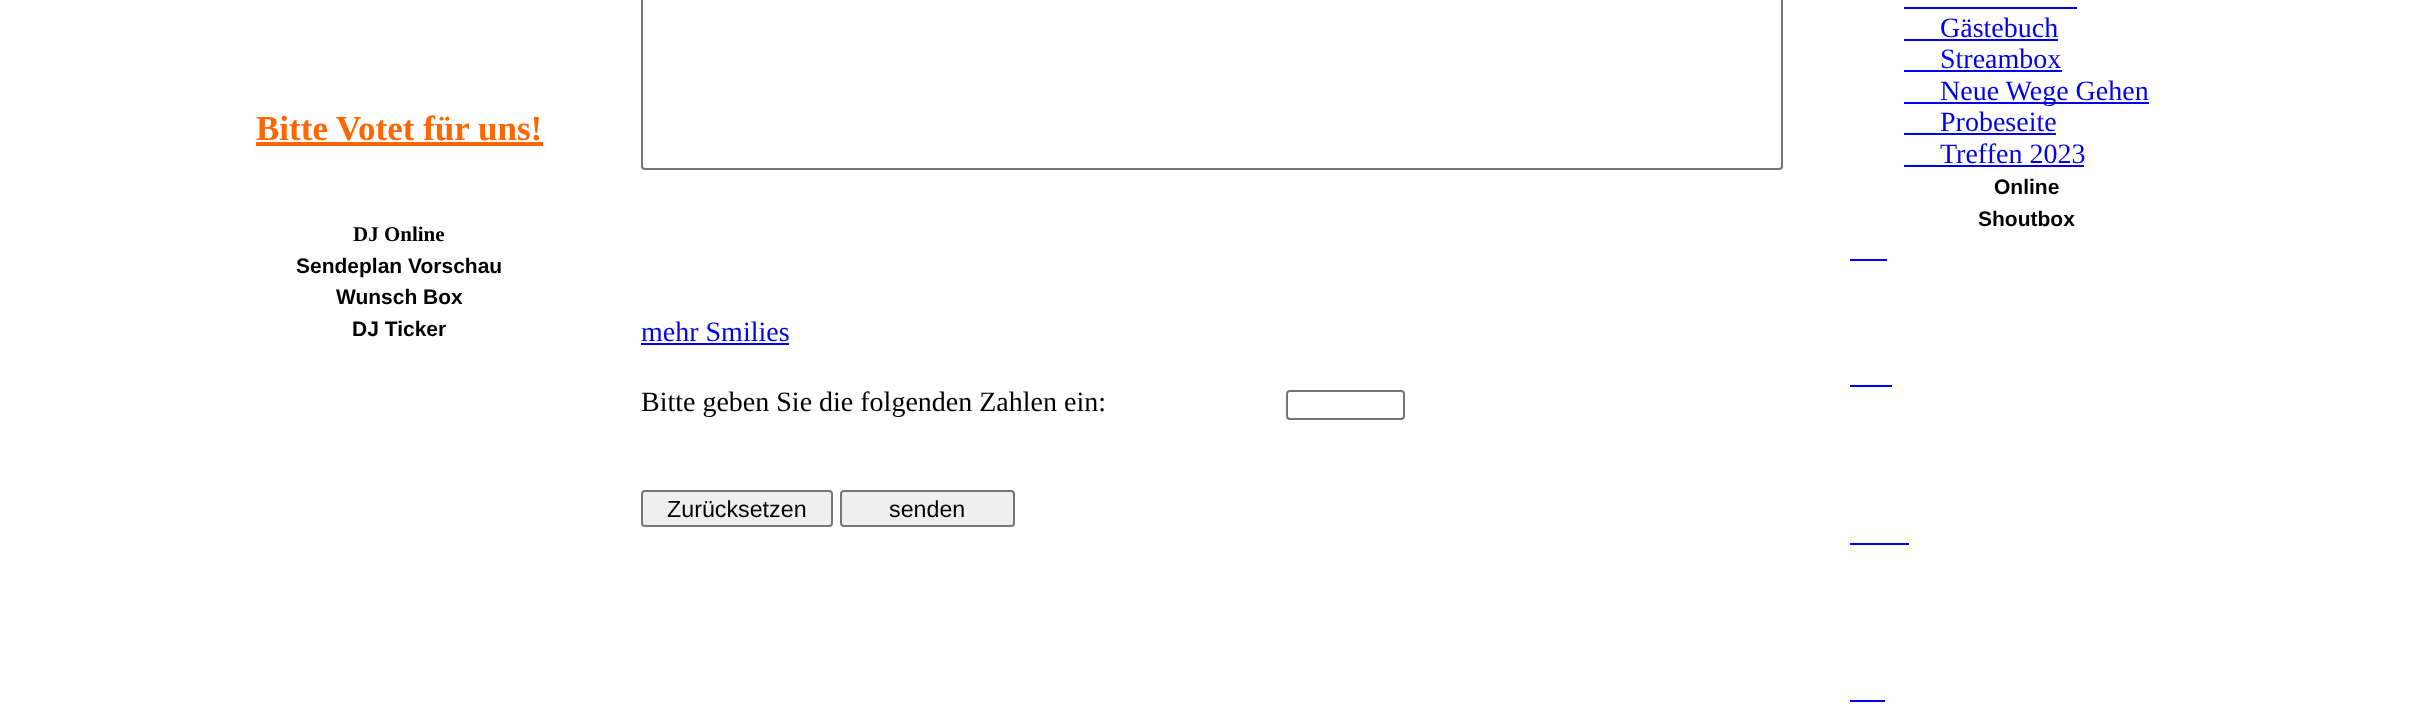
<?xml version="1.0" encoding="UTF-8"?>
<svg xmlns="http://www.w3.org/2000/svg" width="2424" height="707">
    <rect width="100%" height="100%" fill="#FFFFFF"/>
    <text x="256" y="140" font-family="Liberation Serif" font-size="35" font-weight="700" fill="#FF6600">Bitte Votet für uns!</text>
    <rect x="256" y="142" width="287" height="4" fill="#FF6600"/>
    <text x="353" y="241" font-family="Liberation Serif" font-size="21" font-weight="700" fill="#000000">DJ Online</text>
    <text x="296" y="273" font-family="Liberation Sans" font-size="21" font-weight="700" fill="#000000">Sendeplan Vorschau</text>
    <text x="336" y="304" font-family="Liberation Sans" font-size="21" font-weight="700" fill="#000000">Wunsch Box</text>
    <text x="352" y="336" font-family="Liberation Sans" font-size="21" font-weight="700" fill="#000000">DJ Ticker</text>
    <rect x="1904" y="7" width="173" height="2" fill="#0000EE"/>
    <text x="1940" y="37" font-family="Liberation Serif" font-size="28" fill="#0000EE">Gästebuch</text>
    <rect x="1904" y="39" width="154" height="2" fill="#0000EE"/>
    <text x="1940" y="68" font-family="Liberation Serif" font-size="28" fill="#0000EE">Streambox</text>
    <rect x="1904" y="70" width="158" height="2" fill="#0000EE"/>
    <rect x="1904" y="102" width="245" height="2" fill="#0000EE"/>
    <text font-family="Liberation Serif" font-size="28" fill="#0000EE">
        <tspan x="1940" y="100">Neue Wege Gehen</tspan>
        <tspan x="1940" y="131">Probeseite</tspan>
    </text>
    <rect x="1904" y="133" width="152" height="2" fill="#0000EE"/>
    <text x="1940" y="163" font-family="Liberation Serif" font-size="28" fill="#0000EE">Treffen 2023</text>
    <rect x="1904" y="165" width="180" height="2" fill="#0000EE"/>
    <text x="1994" y="194" font-family="Liberation Sans" font-size="21" font-weight="700" fill="#000000">Online</text>
    <text x="1978" y="226" font-family="Liberation Sans" font-size="21" font-weight="700" fill="#000000">Shoutbox</text>
    <rect x="1850" y="259" width="37" height="2" fill="#0000EE"/>
    <rect x="1850" y="385" width="42" height="2" fill="#0000EE"/>
    <rect x="1850" y="543" width="59" height="2" fill="#0000EE"/>
    <rect x="1850" y="700" width="35" height="2" fill="#0000EE"/>
    <rect x="642" y="-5" width="1140" height="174" rx="3" fill="none" stroke="#767676" stroke-width="2"/>
    <text x="641" y="341" font-family="Liberation Serif" font-size="28" fill="#0000EE">mehr Smilies</text>
    <rect x="641" y="343" width="148" height="2" fill="#0000EE"/>
    <text x="641" y="411" font-family="Liberation Serif" font-size="28" fill="#000000">Bitte geben Sie die folgenden Zahlen ein:</text>
    <rect x="1287" y="391" width="117" height="28" rx="3" fill="none" stroke="#767676" stroke-width="2"/>
    <rect x="642" y="491" width="190" height="35" rx="3" fill="#EFEFEF" stroke="#767676" stroke-width="2"/>
    <text x="667" y="517" font-family="Liberation Sans" font-size="23.25" fill="#000000">Zurücksetzen</text>
    <rect x="841" y="491" width="173" height="35" rx="3" fill="#EFEFEF" stroke="#767676" stroke-width="2"/>
    <text x="889" y="517" font-family="Liberation Sans" font-size="23.25" fill="#000000">senden</text>
</svg>
